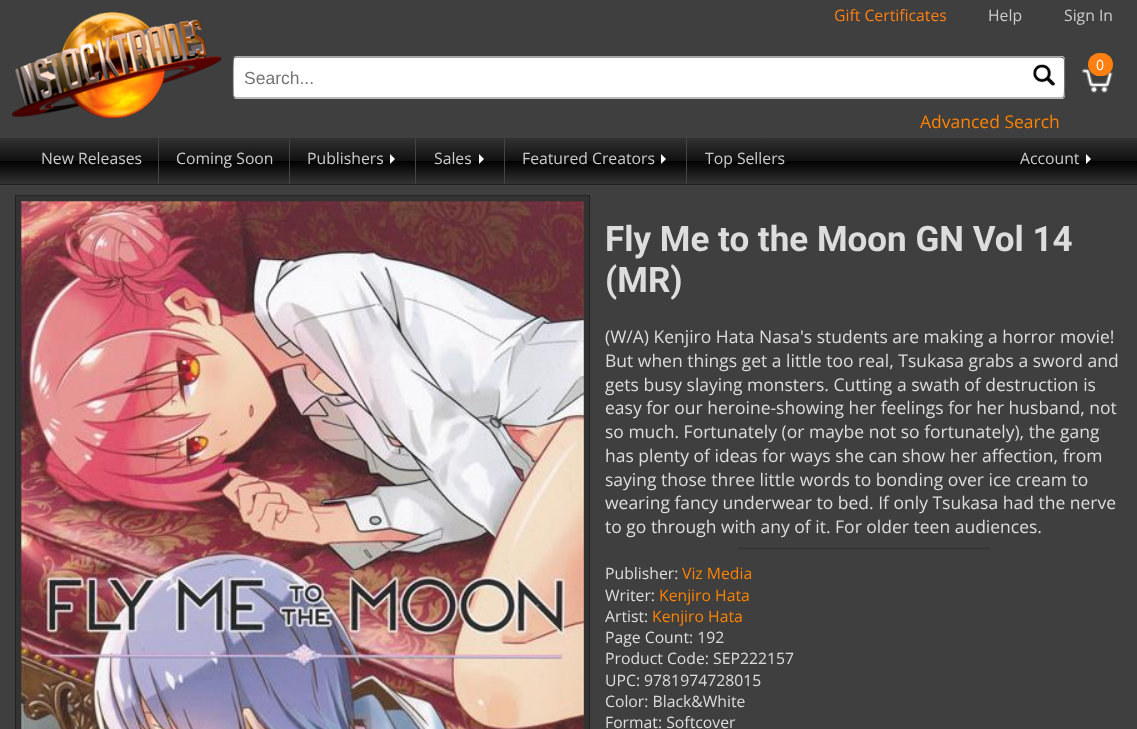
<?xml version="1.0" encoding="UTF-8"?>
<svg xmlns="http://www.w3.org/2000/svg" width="1137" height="729">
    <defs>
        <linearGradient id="g1" gradientUnits="userSpaceOnUse" x1="569" y1="137" x2="569" y2="184"><stop offset="0" stop-color="#333333"/><stop offset="0.5" stop-color="#111111"/><stop offset="0.51" stop-color="#000000"/><stop offset="1" stop-color="#333333"/></linearGradient>
    </defs>
    <rect width="100%" height="100%" fill="#3F3F3F"/>
    <image x="12" y="11" width="210" height="108" href="img_01.png"/>
    <text x="834" y="21" font-family="Open Sans" font-size="15.75" fill="#FF7F10">Gift Certificates</text>
    <text x="988" y="21" font-family="Open Sans" font-size="15.75" fill="#CCCCCC">Help</text>
    <text x="1064" y="21" font-family="Open Sans" font-size="15.75" fill="#CCCCCC">Sign In</text>
    <image x="1082" y="68" width="31" height="25" href="img_02.png"/>
    <rect x="1088" y="53" width="25" height="23" rx="11.5" fill="#FF7F10"/>
    <text x="1096" y="70" font-family="Open Sans" font-size="14" fill="#FFFFFF">0</text>
    <rect x="233" y="56" width="832" height="43" rx="4" fill="#FFFFFF"/>
    <path d="M 1063.5 58 L 1064.5 59.5 C 1064.5 63 1065 95 1064 96.5 C 1063.5 97.5 1062.5 98 1061 98 H 236 L 234 97" fill="none" stroke="#767676" stroke-width="1.2"/>
    <path d="M 234 97 L 233 95.5 C 233 92 232.5 60 233.5 58.5 C 234 57.5 235 57 236 57 H 1061 L 1063.5 58" fill="none" stroke="#4F4F4F" stroke-width="1.2"/>
    <text x="244" y="84" font-family="Liberation Sans" font-size="17.5" fill="#757575">Search...</text>
    <image x="1033" y="64" width="22" height="22" href="img_03.png"/>
    <text x="920" y="128" font-family="Open Sans" font-size="17.5" fill="#FE8300">Advanced Search</text>
    <rect x="0" y="138" width="1137" height="46" fill="url(#g1)"/>
    <rect x="0" y="184" width="1137" height="1" fill="#222222"/>
    <rect x="158" y="138" width="1" height="46" fill="#444444"/>
    <text x="41" y="164" font-family="Open Sans" font-size="15.75" fill="#CCCCCC">New Releases</text>
    <rect x="289" y="138" width="1" height="46" fill="#444444"/>
    <text x="176" y="164" font-family="Open Sans" font-size="15.75" fill="#CCCCCC">Coming Soon</text>
    <rect x="415" y="138" width="1" height="46" fill="#444444"/>
    <text x="307" y="164" font-family="Open Sans" font-size="15.75" fill="#CCCCCC">Publishers</text>
    <path d="M 390 164 V 154 L 395 159 Z" fill="#FFFFFF"/>
    <rect x="504" y="138" width="1" height="46" fill="#444444"/>
    <text x="434" y="164" font-family="Open Sans" font-size="15.75" fill="#CCCCCC">Sales</text>
    <path d="M 479 164 V 154 L 484 159 Z" fill="#FFFFFF"/>
    <rect x="686" y="138" width="1" height="46" fill="#444444"/>
    <text x="522" y="164" font-family="Open Sans" font-size="15.75" fill="#CCCCCC">Featured Creators</text>
    <path d="M 661 164 V 154 L 666 159 Z" fill="#FFFFFF"/>
    <text x="705" y="164" font-family="Open Sans" font-size="15.75" fill="#CCCCCC">Top Sellers</text>
    <text x="1020" y="164" font-family="Open Sans" font-size="15.75" fill="#CCCCCC">Account</text>
    <path d="M 1086 164 V 154 L 1091 159 Z" fill="#FFFFFF"/>
    <rect x="15.5" y="195.5" width="574" height="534" fill="#333333" stroke="#222222"/>
    <image x="21" y="201" width="563" height="528" href="img_04.png"/>
    <text font-family="Roboto" font-size="35" font-weight="700" fill="#DDDDDD">
        <tspan x="605" y="251">Fly Me to the Moon GN Vol 14</tspan>
        <tspan x="605" y="292">(MR)</tspan>
    </text>
    <text font-family="Open Sans" font-size="17.5" fill="#DDDDDD">
        <tspan x="605" y="343">(W/A) Kenjiro Hata Nasa's students are making a horror movie!</tspan>
        <tspan x="605" y="367">But when things get a little too real, Tsukasa grabs a sword and</tspan>
        <tspan x="605" y="391">gets busy slaying monsters. Cutting a swath of destruction is</tspan>
        <tspan x="605" y="414">easy for our heroine-showing her feelings for her husband, not</tspan>
        <tspan x="605" y="438">so much. Fortunately (or maybe not so fortunately), the gang</tspan>
        <tspan x="605" y="462">has plenty of ideas for ways she can show her affection, from</tspan>
        <tspan x="605" y="486">saying those three little words to bonding over ice cream to</tspan>
        <tspan x="605" y="509">wearing fancy underwear to bed. If only Tsukasa had the nerve</tspan>
        <tspan x="605" y="533">to go through with any of it. For older teen audiences.</tspan>
    </text>
    <rect x="739" y="548" width="250" height="1" fill="#313131"/>
    <text x="605" y="579" font-family="Open Sans" font-size="15.75" fill="#DDDDDD">Publisher:</text>
    <text x="682" y="579" font-family="Open Sans" font-size="15.75" fill="#FE8300">Viz Media</text>
    <text x="605" y="601" font-family="Open Sans" font-size="15.75" fill="#DDDDDD">Writer:</text>
    <text x="659" y="601" font-family="Open Sans" font-size="15.75" fill="#FE8300">Kenjiro Hata</text>
    <text x="605" y="622" font-family="Open Sans" font-size="15.75" fill="#DDDDDD">Artist:</text>
    <text x="652" y="622" font-family="Open Sans" font-size="15.75" fill="#FE8300">Kenjiro Hata</text>
    <text font-family="Open Sans" font-size="15.75" fill="#DDDDDD">
        <tspan x="605" y="643">Page Count: 192</tspan>
        <tspan x="605" y="664">Product Code: SEP222157</tspan>
        <tspan x="605" y="686">UPC: 9781974728015</tspan>
        <tspan x="605" y="707">Color: Black&amp;White</tspan>
        <tspan x="605" y="728">Format: Softcover</tspan>
    </text>
</svg>
